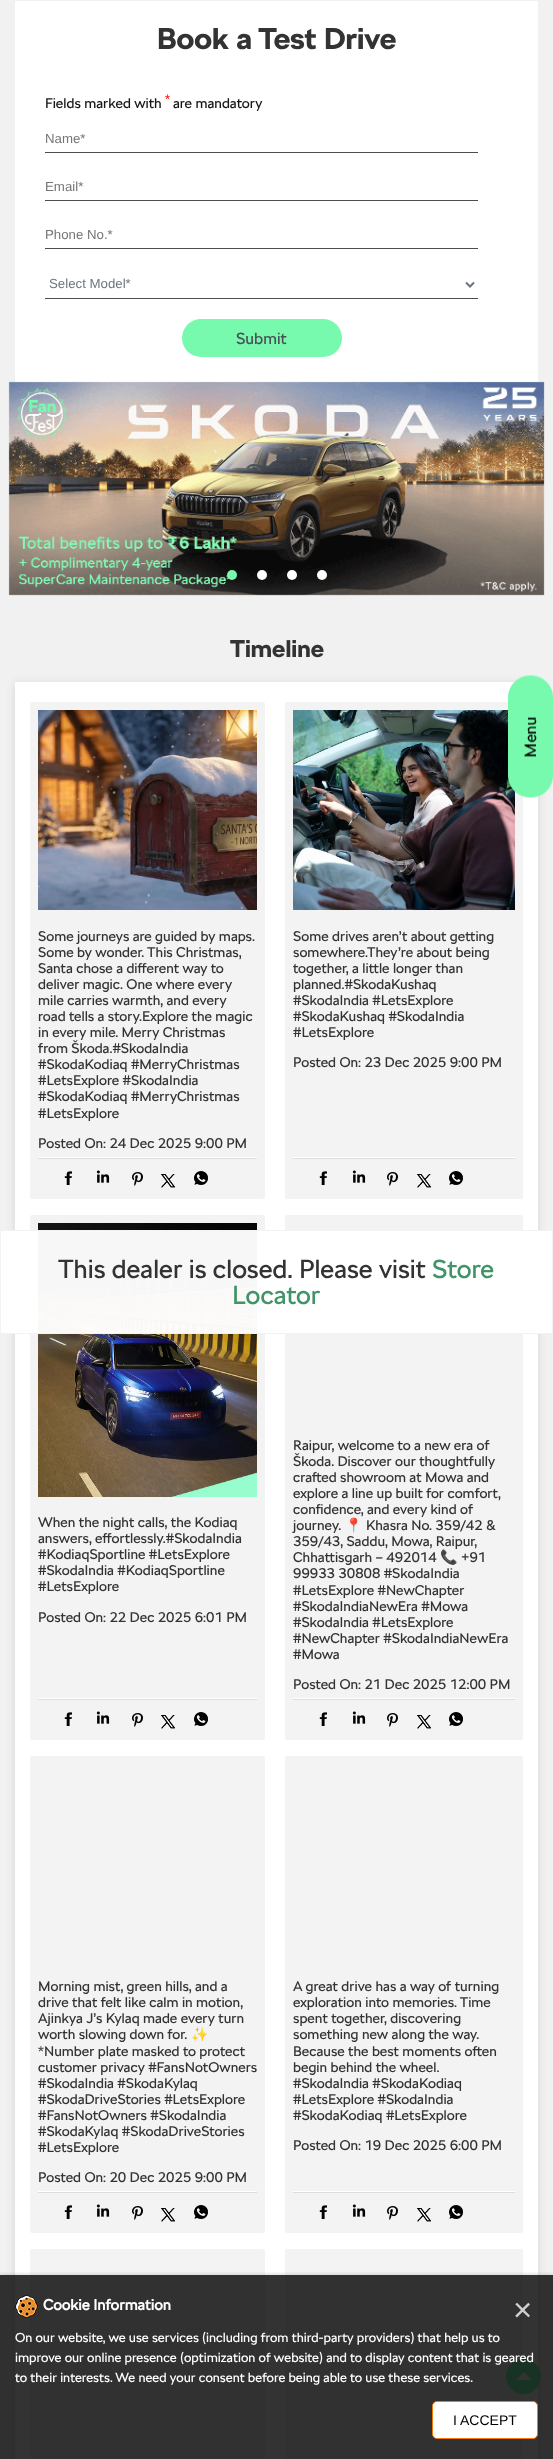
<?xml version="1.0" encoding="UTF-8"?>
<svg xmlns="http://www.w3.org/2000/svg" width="553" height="2459">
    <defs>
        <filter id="blur1" x="-50%" y="-200%" width="200%" height="500%"><feGaussianBlur stdDeviation="4"/></filter>
        <clipPath id="clip1"><rect x="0" y="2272" width="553" height="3"/></clipPath>
        <filter id="blur2" x="-50%" y="-200%" width="200%" height="500%"><feGaussianBlur stdDeviation="2.5"/></filter>
    </defs>
    <rect width="100%" height="100%" fill="#F1F1F1"/>
    <rect x="15" y="1" width="523" height="382" fill="#FFFFFF"/>
    <text x="157" y="49" font-family="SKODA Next" font-size="30" font-weight="700" fill="#333333">Book a Test Drive</text>
    <text x="165" y="103" font-family="SKODA Next" font-size="12" fill="#FF0000">*</text>
    <text x="45" y="108" font-family="SKODA Next" font-size="14" fill="#161718">Fields marked with</text>
    <text x="173" y="108" font-family="SKODA Next" font-size="14" fill="#161718">are mandatory</text>
    <rect x="45" y="152" width="433" height="1" fill="#4C4C4C"/>
    <text x="45" y="143" font-family="Liberation Sans" font-size="13.25" fill="#757575">Name*</text>
    <rect x="45" y="200" width="433" height="1" fill="#4C4C4C"/>
    <text x="45" y="191" font-family="Liberation Sans" font-size="13.25" fill="#757575">Email*</text>
    <rect x="45" y="248" width="433" height="1" fill="#4C4C4C"/>
    <text x="45" y="239" font-family="Liberation Sans" font-size="13.25" fill="#757575">Phone No.*</text>
    <rect x="45" y="298" width="433" height="1" fill="#4C4C4C"/>
    <path d="M 466 282.5 L 470 286.5 L 474 282.5" fill="none" stroke="#6C757D" stroke-width="2"/>
    <text x="49" y="288" font-family="Liberation Sans" font-size="13.25" fill="#6C757D">Select Model*</text>
    <rect x="182" y="319" width="160" height="38" rx="19" fill="#78FAAE"/>
    <text x="236" y="344" font-family="SKODA Next" font-size="16" fill="#495057">Submit</text>
    <image x="8" y="381" width="537" height="215" href="img_01.png"/>
    <circle cx="232" cy="575" r="5" fill="#78FAAE"/>
    <circle cx="262" cy="575" r="5" fill="#FFFFFF"/>
    <circle cx="292" cy="575" r="5" fill="#FFFFFF"/>
    <circle cx="322" cy="575" r="5" fill="#FFFFFF"/>
    <text x="230" y="657" font-family="SKODA Next" font-size="24" font-weight="700" fill="#333333">Timeline</text>
    <rect x="15" y="684" width="523" height="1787" fill="#636363" fill-opacity="0.2" filter="url(#blur1)"/>
    <rect x="15" y="682" width="523" height="1777" fill="#FFFFFF"/>
    <rect x="30" y="702" width="235" height="497" rx="2" fill="#F3F3F3"/>
    <image x="38" y="710" width="219" height="200" href="img_02.png"/>
    <text font-family="SKODA Next" font-size="14" fill="#333333">
        <tspan x="38" y="941">Some journeys are guided by maps.</tspan>
        <tspan x="38" y="957">Some by wonder. This Christmas,</tspan>
        <tspan x="38" y="973">Santa chose a different way to</tspan>
        <tspan x="38" y="989">deliver magic. One where every</tspan>
        <tspan x="38" y="1005">mile carries warmth, and every</tspan>
        <tspan x="38" y="1021">road tells a story.Explore the magic</tspan>
        <tspan x="38" y="1037">in every mile. Merry Christmas</tspan>
        <tspan x="38" y="1053">from Škoda.#SkodaIndia</tspan>
        <tspan x="38" y="1069">#SkodaKodiaq #MerryChristmas</tspan>
        <tspan x="38" y="1085">#LetsExplore #SkodaIndia</tspan>
        <tspan x="38" y="1101">#SkodaKodiaq #MerryChristmas</tspan>
        <tspan x="38" y="1118">#LetsExplore</tspan>
    </text>
    <text x="38" y="1148" font-family="SKODA Next" font-size="14" fill="#333333">Posted On: 24 Dec 2025 9:00 PM</text>
    <rect x="38" y="1158" width="219" height="1" fill="#DDDDDD"/>
    <rect x="38" y="1157" width="219" height="1" fill="#FFFFFF"/>
    <image x="64" y="1171" width="8" height="14" href="img_03.png"/>
    <image x="96" y="1170" width="14" height="13" href="img_04.png"/>
    <image x="132" y="1172" width="11" height="14" href="img_05.png"/>
    <image x="161" y="1174" width="14" height="14" href="img_06.png"/>
    <image x="194" y="1171" width="14" height="14" href="img_07.png"/>
    <rect x="285" y="702" width="238" height="497" rx="2" fill="#F3F3F3"/>
    <image x="293" y="710" width="222" height="200" href="img_08.png"/>
    <text font-family="SKODA Next" font-size="14" fill="#333333">
        <tspan x="293" y="941">Some drives aren’t about getting</tspan>
        <tspan x="293" y="957">somewhere.</tspan>
    </text>
    <text x="367" y="957" font-family="SKODA Next" font-size="14" fill="#333333">They’re about being</text>
    <text font-family="SKODA Next" font-size="14" fill="#333333">
        <tspan x="293" y="973">together, a little longer than</tspan>
        <tspan x="293" y="989">planned.#SkodaKushaq</tspan>
        <tspan x="293" y="1005">#SkodaIndia #LetsExplore</tspan>
        <tspan x="293" y="1021">#SkodaKushaq #SkodaIndia</tspan>
        <tspan x="293" y="1037">#LetsExplore</tspan>
    </text>
    <text x="293" y="1067" font-family="SKODA Next" font-size="14" fill="#333333">Posted On: 23 Dec 2025 9:00 PM</text>
    <rect x="293" y="1158" width="222" height="1" fill="#DDDDDD"/>
    <rect x="293" y="1157" width="222" height="1" fill="#FFFFFF"/>
    <image x="319" y="1171" width="8" height="14" href="img_03.png"/>
    <image x="352" y="1170" width="14" height="13" href="img_04.png"/>
    <image x="387" y="1172" width="11" height="14" href="img_05.png"/>
    <image x="417" y="1174" width="14" height="14" href="img_06.png"/>
    <image x="449" y="1171" width="14" height="14" href="img_07.png"/>
    <rect x="30" y="1215" width="235" height="525" rx="2" fill="#F3F3F3"/>
    <image x="38" y="1223" width="219" height="274" href="img_09.png"/>
    <text font-family="SKODA Next" font-size="14" fill="#333333">
        <tspan x="38" y="1527">When the night calls, the Kodiaq</tspan>
        <tspan x="38" y="1543">answers, effortlessly.#SkodaIndia</tspan>
        <tspan x="38" y="1559">#KodiaqSportline #LetsExplore</tspan>
        <tspan x="38" y="1575">#SkodaIndia #KodiaqSportline</tspan>
        <tspan x="38" y="1591">#LetsExplore</tspan>
    </text>
    <text x="38" y="1622" font-family="SKODA Next" font-size="14" fill="#333333">Posted On: 22 Dec 2025 6:01 PM</text>
    <rect x="38" y="1699" width="219" height="1" fill="#DDDDDD"/>
    <rect x="38" y="1698" width="219" height="1" fill="#FFFFFF"/>
    <image x="64" y="1712" width="8" height="14" href="img_03.png"/>
    <image x="96" y="1711" width="14" height="13" href="img_04.png"/>
    <image x="132" y="1713" width="11" height="14" href="img_05.png"/>
    <image x="161" y="1715" width="14" height="14" href="img_06.png"/>
    <image x="194" y="1712" width="14" height="14" href="img_07.png"/>
    <rect x="285" y="1215" width="238" height="525" rx="2" fill="#F3F3F3"/>
    <text font-family="SKODA Next" font-size="14" fill="#333333">
        <tspan x="293" y="1450">Raipur, welcome to a new era of</tspan>
        <tspan x="293" y="1466">Škoda. Discover our thoughtfully</tspan>
        <tspan x="293" y="1482">crafted showroom at Mowa and</tspan>
        <tspan x="293" y="1498">explore a line up built for comfort,</tspan>
        <tspan x="293" y="1514">confidence, and every kind of</tspan>
        <tspan x="293" y="1530">journey.</tspan>
    </text>
    <text x="345" y="1530" font-family="Noto Color Emoji" font-size="14" fill="#333333">📍</text>
    <text x="366" y="1530" font-family="SKODA Next" font-size="14" fill="#333333">Khasra No. 359/42 &amp;</text>
    <text font-family="SKODA Next" font-size="14" fill="#333333">
        <tspan x="293" y="1546">359/43, Saddu, Mowa, Raipur,</tspan>
        <tspan x="293" y="1562">Chhattisgarh – 492014</tspan>
    </text>
    <text x="440" y="1562" font-family="Noto Color Emoji" font-size="14" fill="#333333">📞</text>
    <text x="461" y="1562" font-family="SKODA Next" font-size="14" fill="#333333">+91</text>
    <text font-family="SKODA Next" font-size="14" fill="#333333">
        <tspan x="293" y="1578">99933 30808 #SkodaIndia</tspan>
        <tspan x="293" y="1595">#LetsExplore #NewChapter</tspan>
        <tspan x="293" y="1611">#SkodaIndiaNewEra #Mowa</tspan>
        <tspan x="293" y="1627">#SkodaIndia #LetsExplore</tspan>
        <tspan x="293" y="1643">#NewChapter #SkodaIndiaNewEra</tspan>
        <tspan x="293" y="1659">#Mowa</tspan>
    </text>
    <text x="293" y="1689" font-family="SKODA Next" font-size="14" fill="#333333">Posted On: 21 Dec 2025 12:00 PM</text>
    <rect x="293" y="1699" width="222" height="1" fill="#DDDDDD"/>
    <rect x="293" y="1698" width="222" height="1" fill="#FFFFFF"/>
    <image x="319" y="1712" width="8" height="14" href="img_03.png"/>
    <image x="352" y="1711" width="14" height="13" href="img_04.png"/>
    <image x="387" y="1713" width="11" height="14" href="img_05.png"/>
    <image x="417" y="1715" width="14" height="14" href="img_06.png"/>
    <image x="449" y="1712" width="14" height="14" href="img_07.png"/>
    <rect x="30" y="1756" width="235" height="477" rx="2" fill="#F3F3F3"/>
    <text font-family="SKODA Next" font-size="14" fill="#333333">
        <tspan x="38" y="1991">Morning mist, green hills, and a</tspan>
        <tspan x="38" y="2007">drive that felt like calm in motion,</tspan>
        <tspan x="38" y="2023">Ajinkya J’s Kylaq made every turn</tspan>
        <tspan x="38" y="2039">worth slowing down for.</tspan>
    </text>
    <text x="191" y="2039" font-family="Noto Color Emoji" font-size="14" fill="#333333">✨</text>
    <text font-family="SKODA Next" font-size="14" fill="#333333">
        <tspan x="38" y="2056">*Number plate masked to protect</tspan>
        <tspan x="38" y="2072">customer privacy #FansNotOwners</tspan>
        <tspan x="38" y="2088">#SkodaIndia #SkodaKylaq</tspan>
        <tspan x="38" y="2104">#SkodaDriveStories #LetsExplore</tspan>
        <tspan x="38" y="2120">#FansNotOwners #SkodaIndia</tspan>
        <tspan x="38" y="2136">#SkodaKylaq #SkodaDriveStories</tspan>
        <tspan x="38" y="2152">#LetsExplore</tspan>
    </text>
    <text x="38" y="2182" font-family="SKODA Next" font-size="14" fill="#333333">Posted On: 20 Dec 2025 9:00 PM</text>
    <rect x="38" y="2192" width="219" height="1" fill="#DDDDDD"/>
    <rect x="38" y="2191" width="219" height="1" fill="#FFFFFF"/>
    <image x="64" y="2205" width="8" height="14" href="img_03.png"/>
    <image x="96" y="2204" width="14" height="13" href="img_04.png"/>
    <image x="132" y="2206" width="11" height="14" href="img_05.png"/>
    <image x="161" y="2208" width="14" height="14" href="img_06.png"/>
    <image x="194" y="2205" width="14" height="14" href="img_07.png"/>
    <rect x="285" y="1756" width="238" height="477" rx="2" fill="#F3F3F3"/>
    <text font-family="SKODA Next" font-size="14" fill="#333333">
        <tspan x="293" y="1991">A great drive has a way of turning</tspan>
        <tspan x="293" y="2007">exploration into memories. Time</tspan>
        <tspan x="293" y="2023">spent together, discovering</tspan>
        <tspan x="293" y="2039">something new along the way.</tspan>
        <tspan x="293" y="2056">Because the best moments often</tspan>
        <tspan x="293" y="2072">begin behind the wheel.</tspan>
        <tspan x="293" y="2088">#SkodaIndia #SkodaKodiaq</tspan>
        <tspan x="293" y="2104">#LetsExplore #SkodaIndia</tspan>
        <tspan x="293" y="2120">#SkodaKodiaq #LetsExplore</tspan>
    </text>
    <text x="293" y="2150" font-family="SKODA Next" font-size="14" fill="#333333">Posted On: 19 Dec 2025 6:00 PM</text>
    <rect x="293" y="2192" width="222" height="1" fill="#DDDDDD"/>
    <rect x="293" y="2191" width="222" height="1" fill="#FFFFFF"/>
    <image x="319" y="2205" width="8" height="14" href="img_03.png"/>
    <image x="352" y="2204" width="14" height="13" href="img_04.png"/>
    <image x="387" y="2206" width="11" height="14" href="img_05.png"/>
    <image x="417" y="2208" width="14" height="14" href="img_06.png"/>
    <image x="449" y="2205" width="14" height="14" href="img_07.png"/>
    <rect x="30" y="2249" width="235" height="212" rx="2" fill="#F3F3F3"/>
    <rect x="285" y="2249" width="238" height="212" rx="2" fill="#F3F3F3"/>
    <rect x="0.5" y="1230.5" width="552" height="103" fill="#FFFFFF" fill-opacity="0.97" stroke="#F3F3F3"/>
    <text x="58" y="1278" font-family="SKODA Next" font-size="26" fill="#333333">This dealer is closed. Please visit</text>
    <text x="432" y="1278" font-family="SKODA Next" font-size="26" fill="#419468">Store</text>
    <text x="232" y="1304" font-family="SKODA Next" font-size="26" fill="#419468">Locator</text>
    <image x="508" y="675" width="45" height="123" href="img_10.png"/>
    <circle cx="523.5" cy="2376.5" r="17.5" fill="#78FAAE"/>
    <path d="M 532 2380 H 516 L 524 2372 Z" fill="#FFFFFF"/>
    <g clip-path="url(#clip1)">
        <rect x="0" y="2275" width="553" height="184" fill="#000000" fill-opacity="0.2" filter="url(#blur2)"/>
    </g>
    <rect x="0" y="2275" width="553" height="184" fill="#000000" fill-opacity="0.8"/>
    <image x="15" y="2295" width="23" height="23" href="img_11.png"/>
    <text x="43" y="2310" font-family="'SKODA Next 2'" font-size="15" font-weight="700" fill="#FFFFFF">Cookie Information</text>
    <text x="513" y="2321" font-family="Liberation Sans" font-size="33" fill="#D0D0D0">×</text>
    <text font-family="SKODA Next" font-size="13" fill="#FFFFFF">
        <tspan x="15" y="2342">On our website, we use services (including from third-party providers) that help us to</tspan>
        <tspan x="15" y="2362">improve our online presence (optimization of website) and to display content that is geared</tspan>
        <tspan x="15" y="2382">to their interests. We need your consent before being able to use these services.</tspan>
    </text>
    <rect x="432.5" y="2401.5" width="105" height="37" rx="4.5" fill="#FFFFFF" stroke="#F4790A"/>
    <text x="453" y="2425" font-family="Liberation Sans" font-size="14" fill="#000000">I ACCEPT</text>
</svg>
